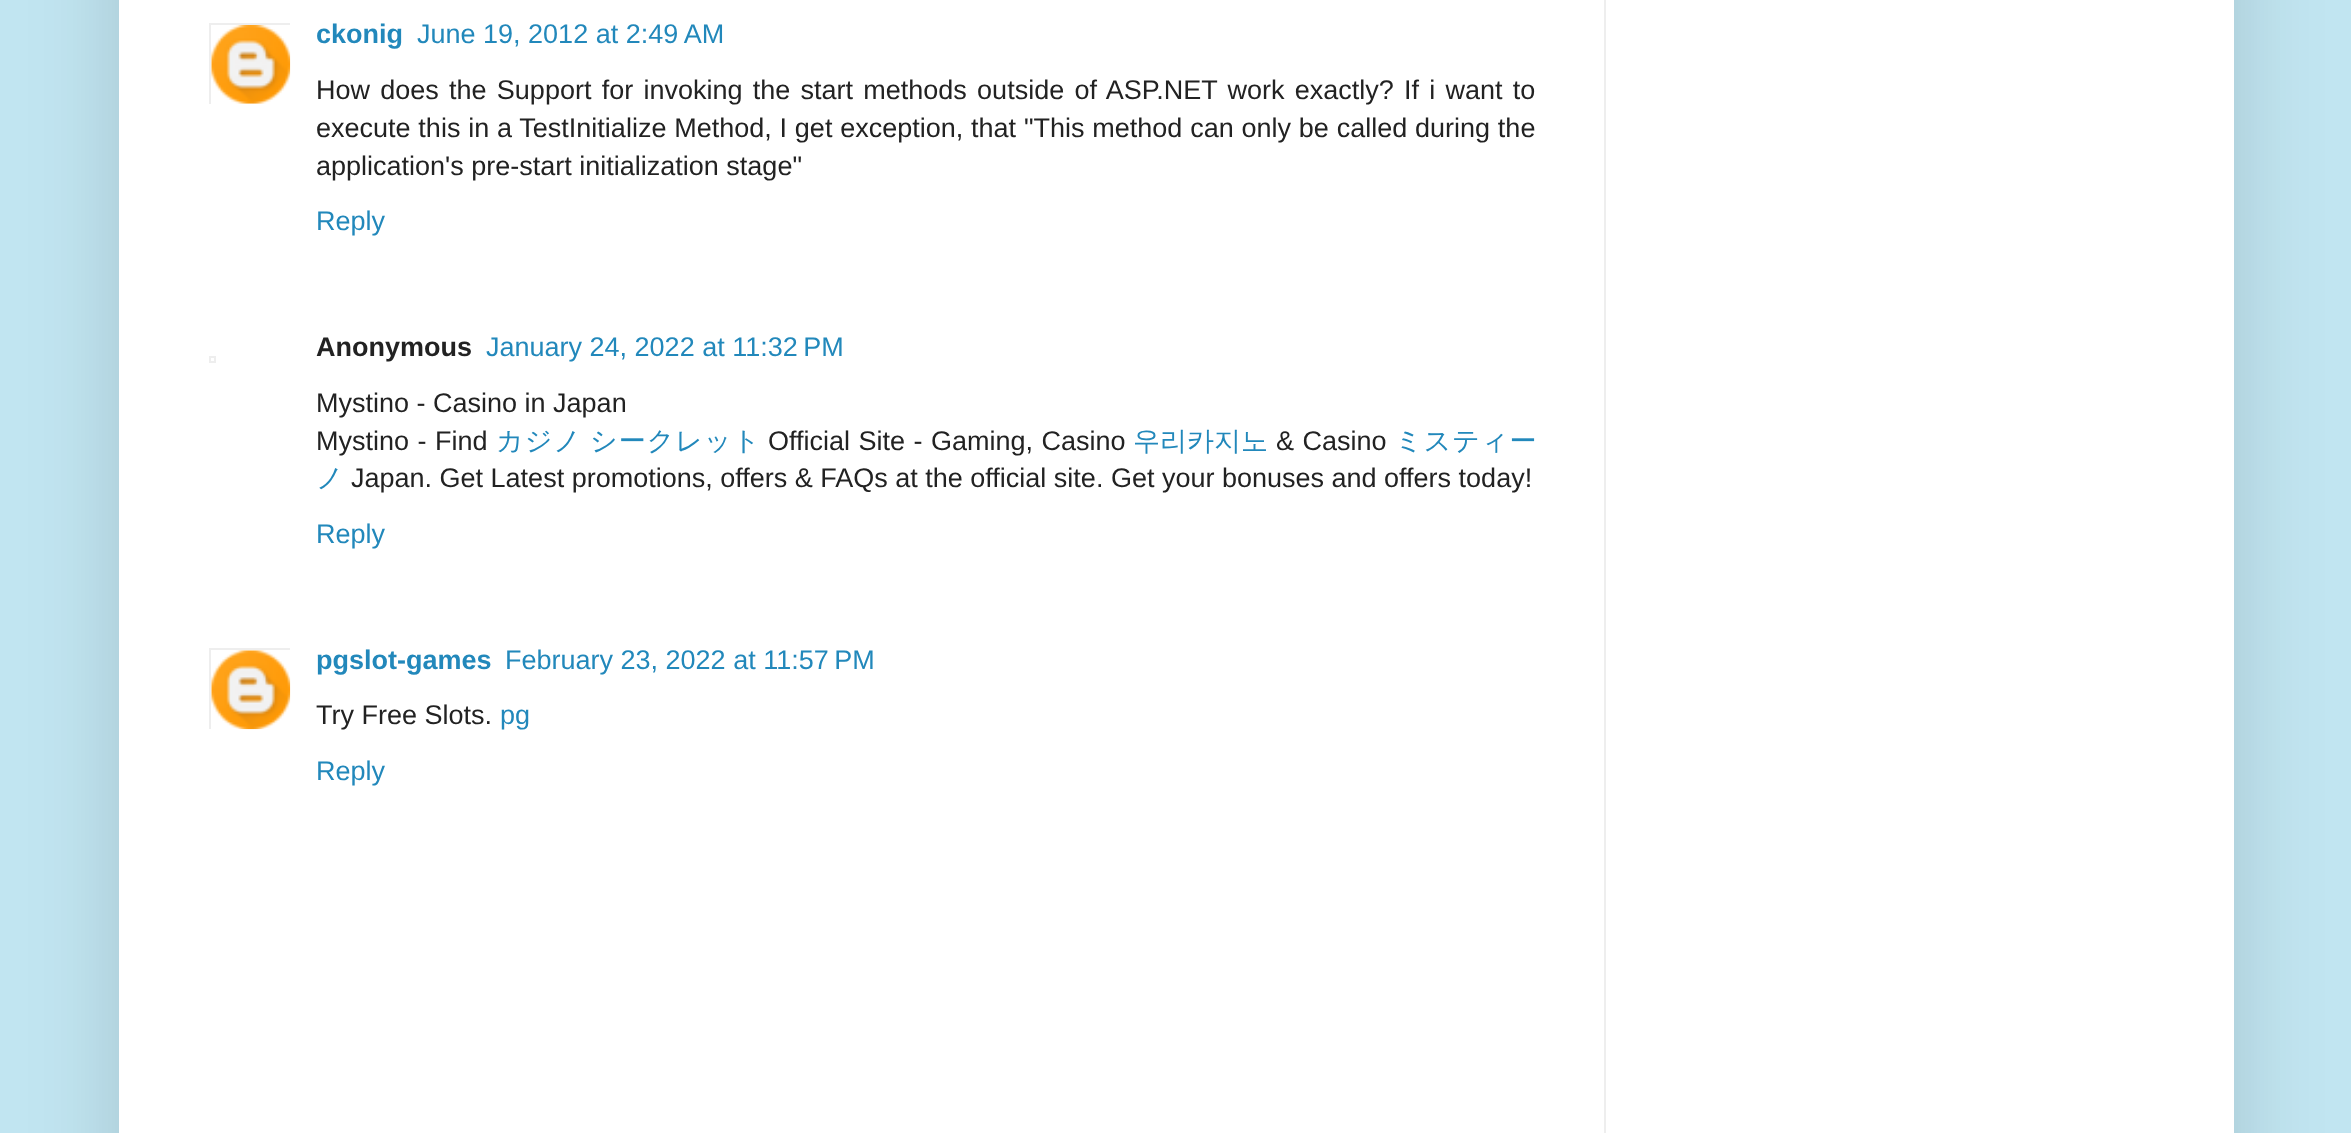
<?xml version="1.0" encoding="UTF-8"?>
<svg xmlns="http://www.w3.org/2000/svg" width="2351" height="1133">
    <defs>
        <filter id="blur1" x="-50%" y="-200%" width="200%" height="500%"><feGaussianBlur stdDeviation="45"/></filter>
        <clipPath id="clip1"><rect x="209" y="23" width="81" height="81"/></clipPath>
        <clipPath id="clip2"><rect x="209" y="648" width="81" height="81"/></clipPath>
    </defs>
    <rect width="100%" height="100%" fill="#C1E5F1"/>
    <rect x="119" y="-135" width="2115" height="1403" fill="#000000" fill-opacity="0.15" filter="url(#blur1)"/>
    <rect x="119" y="0" width="2115" height="1133" fill="#FFFFFF"/>
    <g clip-path="url(#clip1)">
        <rect x="210" y="24" width="82" height="81" fill="none" stroke="#EEEEEE" stroke-width="2"/>
    </g>
    <image x="211" y="25" width="80" height="79" href="img_01.png"/>
    <text x="316" y="43" font-family="Liberation Sans" font-size="27" font-weight="700" fill="#2288BB">ckonig</text>
    <text x="417" y="43" font-family="Liberation Sans" font-size="27" fill="#2288BB">June 19, 2012 at 2:49 AM</text>
    <text font-family="Liberation Sans" font-size="27" fill="#222222">
        <tspan x="316" y="99" word-spacing="2.75">How does the Support for invoking the start methods outside of ASP.NET work exactly? If i want to</tspan>
        <tspan x="316" y="137" word-spacing="0.3">execute this in a TestInitialize Method, I get exception, that "This method can only be called during the</tspan>
        <tspan x="316" y="175">application's pre-start initialization stage"</tspan>
    </text>
    <text x="316" y="230" font-family="Liberation Sans" font-size="27" fill="#2288BB">Reply</text>
    <rect x="210" y="357" width="5" height="5" fill="none" stroke="#EEEEEE" stroke-width="2"/>
    <text x="316" y="356" font-family="Liberation Sans" font-size="27" font-weight="700" fill="#222222">Anonymous</text>
    <text x="486" y="356" font-family="Liberation Sans" font-size="27" fill="#2288BB">January 24, 2022 at 11:32 PM</text>
    <text font-family="Liberation Sans" font-size="27" fill="#222222">
        <tspan x="316" y="412">Mystino - Casino in Japan</tspan>
        <tspan x="316" y="450" word-spacing="1">Mystino - Find</tspan>
    </text>
    <text x="496" y="450" word-spacing="-1" font-family="WenQuanYi Zen Hei" font-size="27" font-weight="500" letter-spacing="1" fill="#2288BB">カジノ シークレット</text>
    <text x="768" y="450" word-spacing="1" font-family="Liberation Sans" font-size="27" fill="#222222">Official Site - Gaming, Casino</text>
    <text x="1133" y="450" font-family="WenQuanYi Zen Hei" font-size="27" font-weight="500" fill="#2288BB">우리카지노</text>
    <text x="1276" y="450" word-spacing="1" font-family="Liberation Sans" font-size="27" fill="#222222">&amp; Casino</text>
    <text x="1395" y="450" font-family="WenQuanYi Zen Hei" font-size="27" font-weight="500" letter-spacing="1" fill="#2288BB">ミスティー</text>
    <text x="316" y="487" font-family="WenQuanYi Zen Hei" font-size="27" font-weight="500" fill="#2288BB">ノ</text>
    <text x="351" y="487" font-family="Liberation Sans" font-size="27" fill="#222222">Japan. Get Latest promotions, offers &amp; FAQs at the official site. Get your bonuses and offers today!</text>
    <text x="316" y="543" font-family="Liberation Sans" font-size="27" fill="#2288BB">Reply</text>
    <g clip-path="url(#clip2)">
        <rect x="210" y="649" width="82" height="81" fill="none" stroke="#EEEEEE" stroke-width="2"/>
    </g>
    <image x="211" y="650" width="80" height="80" href="img_02.png"/>
    <text x="316" y="669" font-family="Liberation Sans" font-size="27" font-weight="700" fill="#2288BB">pgslot-games</text>
    <text x="505" y="669" font-family="Liberation Sans" font-size="27" fill="#2288BB">February 23, 2022 at 11:57 PM</text>
    <text x="316" y="724" font-family="Liberation Sans" font-size="27" fill="#222222">Try Free Slots.</text>
    <text x="500" y="724" font-family="Liberation Sans" font-size="27" fill="#2288BB">pg</text>
    <text x="316" y="780" font-family="Liberation Sans" font-size="27" fill="#2288BB">Reply</text>
    <rect x="1604" y="0" width="2" height="1133" fill="#EEEEEE"/>
</svg>
